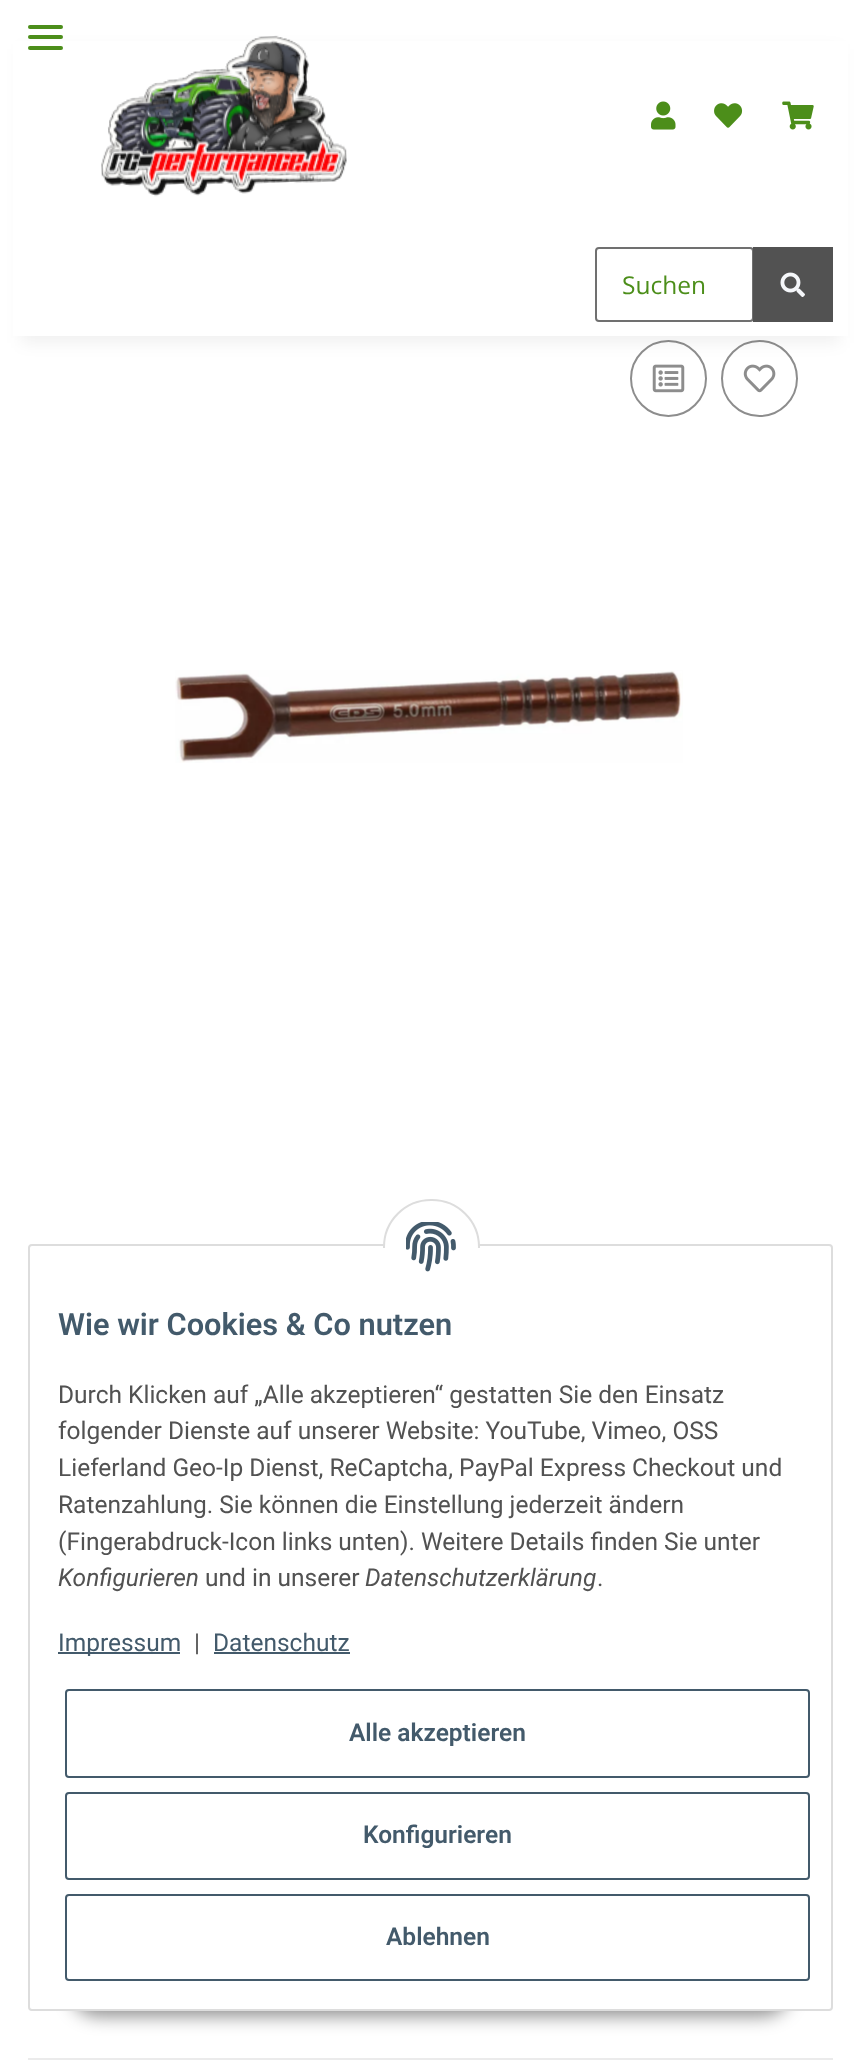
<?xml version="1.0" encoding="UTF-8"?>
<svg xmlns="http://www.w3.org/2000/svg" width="861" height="2066">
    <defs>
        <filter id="blur1" x="-50%" y="-200%" width="200%" height="500%"><feGaussianBlur stdDeviation="8"/></filter>
        <filter id="blur2" x="-50%" y="-200%" width="200%" height="500%"><feGaussianBlur stdDeviation="9"/></filter>
    </defs>
    <rect width="100%" height="100%" fill="#FFFFFF"/>
    <circle cx="668.5" cy="378.5" r="37.5" fill="none" stroke="#8D8D8D" stroke-width="2"/>
    <image x="652" y="364" width="33" height="29" href="img_06.png"/>
    <circle cx="759.5" cy="378.5" r="37.5" fill="none" stroke="#8D8D8D" stroke-width="2"/>
    <image x="743" y="364" width="33" height="29" href="img_07.png"/>
    <rect x="21" y="49" width="819" height="294" fill="#000000" fill-opacity="0.06" filter="url(#blur1)"/>
    <rect x="13" y="41" width="835" height="295" fill="#FFFFFF"/>
    <rect x="28" y="35" width="35" height="4" rx="2" fill="#4C8E1A"/>
    <rect x="28" y="25" width="35" height="4" rx="2" fill="#4C8E1A"/>
    <rect x="28" y="46" width="35" height="4" rx="2" fill="#4C8E1A"/>
    <image x="101" y="35" width="246" height="162" href="img_01.png"/>
    <image x="651" y="101" width="25" height="29" href="img_02.png"/>
    <image x="714" y="103" width="29" height="25" href="img_03.png"/>
    <image x="782" y="101" width="32" height="29" href="img_04.png"/>
    <rect x="596" y="248" width="157" height="73" rx="3" fill="none" stroke="#707070" stroke-width="2"/>
    <text x="622" y="294" font-family="Open Sans" font-size="24.5" fill="#4C8E1A">Suchen</text>
    <rect x="753" y="247" width="80" height="75" fill="#525252"/>
    <image x="780" y="272" width="25" height="25" href="img_05.png"/>
    <image x="175" y="670" width="508" height="93" href="img_08.png"/>
    <rect x="28" y="2058" width="805" height="2" fill="#EBEBEB"/>
    <rect x="70" y="1960" width="721" height="56" rx="28" fill="#000000" fill-opacity="0.45" filter="url(#blur2)"/>
    <rect x="29" y="1245" width="803" height="765" rx="3" fill="#FFFFFF" stroke="#DDDDDD" stroke-width="2"/>
    <rect x="384" y="1200" width="95" height="94" rx="47" fill="#FFFFFF" stroke="#DDDDDD" stroke-width="2"/>
    <rect x="383" y="1248" width="97" height="47" fill="#FFFFFF"/>
    <image x="406" y="1222" width="50" height="50" href="img_09.png"/>
    <text x="58" y="1335" font-family="Roboto" font-size="30.75" font-weight="600" fill="#435A6B">Wie wir Cookies &amp; Co nutzen</text>
    <text font-family="Roboto" font-size="24.5" fill="#525252">
        <tspan x="58" y="1403">Durch Klicken auf „Alle akzeptieren“ gestatten Sie den Einsatz</tspan>
        <tspan x="58" y="1439">folgender Dienste auf unserer Website: YouTube, Vimeo, OSS</tspan>
        <tspan x="58" y="1476">Lieferland Geo-Ip Dienst, ReCaptcha, PayPal Express Checkout und</tspan>
        <tspan x="58" y="1513">Ratenzahlung. Sie können die Einstellung jederzeit ändern</tspan>
        <tspan x="58" y="1550">(Fingerabdruck-Icon links unten). Weitere Details finden Sie unter</tspan>
    </text>
    <text x="58" y="1586" font-family="Roboto" font-size="24.5" font-style="italic" fill="#525252">Konfigurieren</text>
    <text x="205" y="1586" font-family="Roboto" font-size="24.5" fill="#525252">und in unserer</text>
    <text x="365" y="1586" font-family="Roboto" font-size="24.5" font-style="italic" fill="#525252">Datenschutzerklärung</text>
    <text x="597" y="1586" font-family="Roboto" font-size="24.5" fill="#525252">.</text>
    <rect x="58" y="1652" width="122" height="2" fill="#435A6B"/>
    <text x="58" y="1651" font-family="Roboto" font-size="24.5" fill="#435A6B">Impressum</text>
    <text x="194" y="1651" font-family="Roboto" font-size="24.5" fill="#525252">|</text>
    <text x="213" y="1651" font-family="Roboto" font-size="24.5" fill="#435A6B">Datenschutz</text>
    <rect x="214" y="1652" width="136" height="2" fill="#435A6B"/>
    <rect x="66" y="1690" width="743" height="87" rx="3" fill="none" stroke="#435A6B" stroke-width="2"/>
    <text x="349" y="1741" font-family="Roboto" font-size="24.5" font-weight="600" fill="#435A6B">Alle akzeptieren</text>
    <rect x="66" y="1793" width="743" height="86" rx="3" fill="none" stroke="#435A6B" stroke-width="2"/>
    <text x="363" y="1843" font-family="Roboto" font-size="24.5" font-weight="600" fill="#435A6B">Konfigurieren</text>
    <rect x="66" y="1895" width="743" height="85" rx="3" fill="none" stroke="#435A6B" stroke-width="2"/>
    <text x="386" y="1945" font-family="Roboto" font-size="24.5" font-weight="600" fill="#435A6B">Ablehnen</text>
</svg>
